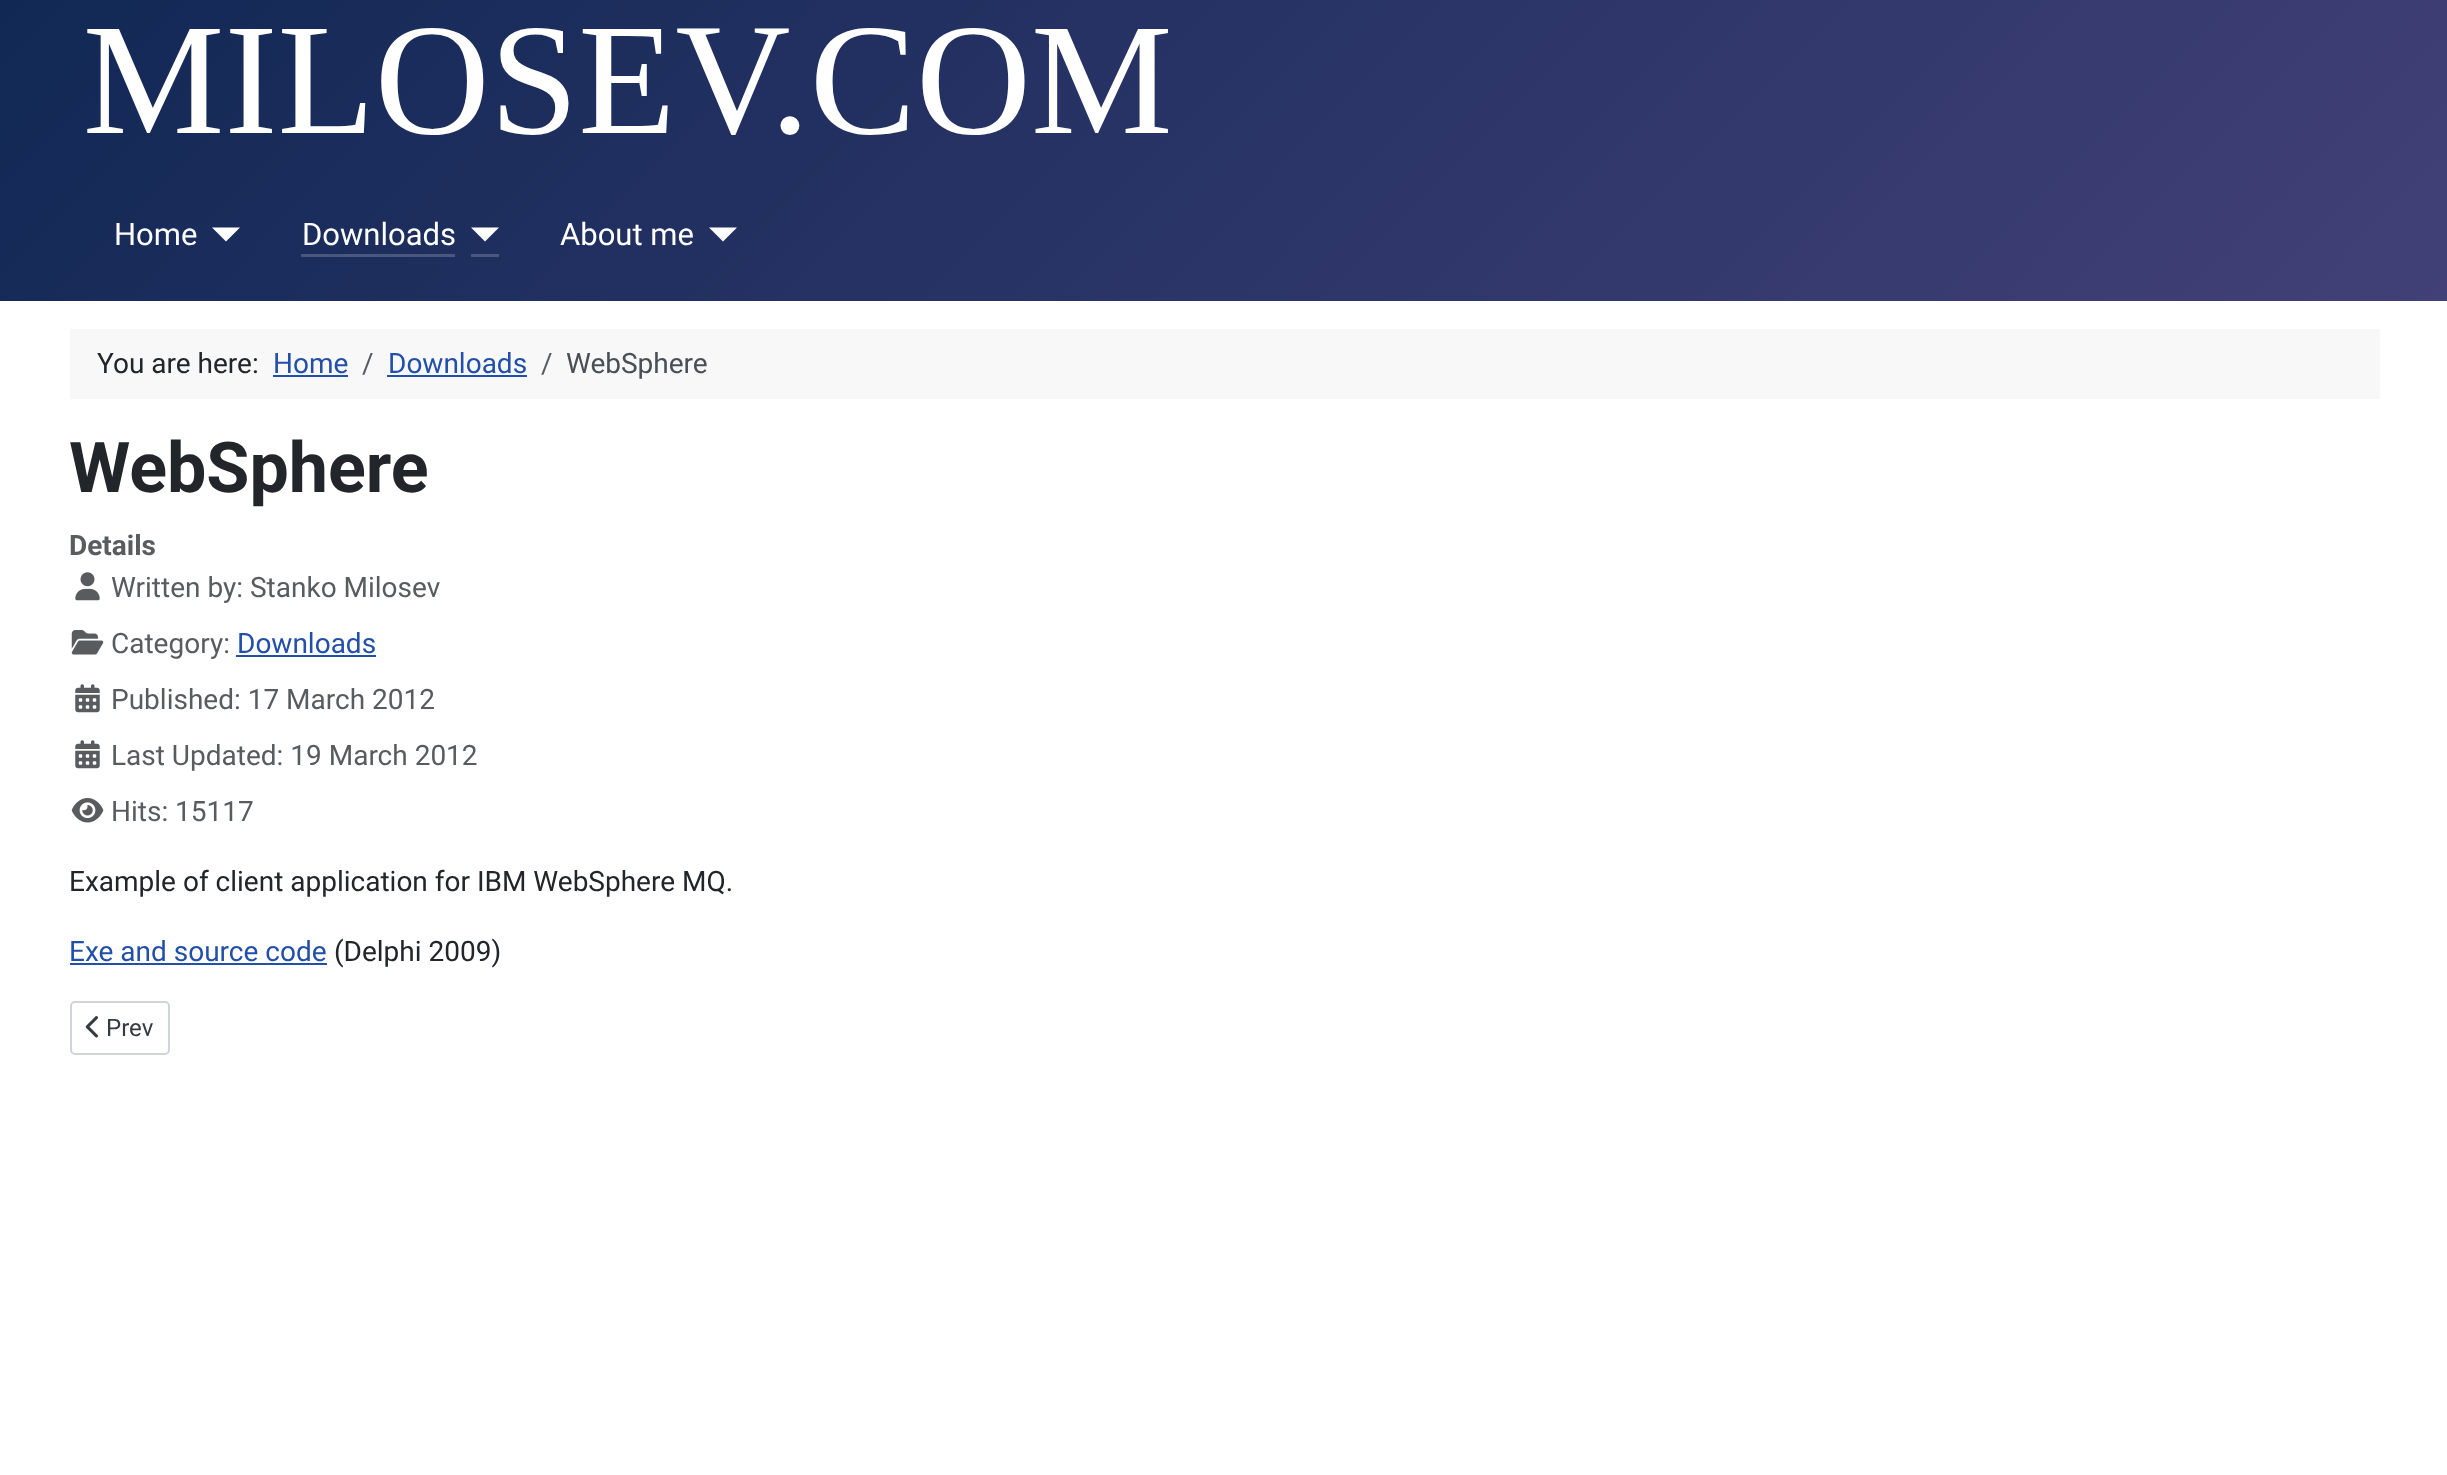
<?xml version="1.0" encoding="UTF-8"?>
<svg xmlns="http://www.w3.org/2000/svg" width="2447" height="1475">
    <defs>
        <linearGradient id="g1" gradientUnits="userSpaceOnUse" x1="537" y1="-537" x2="1911" y2="838"><stop offset="0" stop-color="#112855"/><stop offset="1" stop-color="#424077"/></linearGradient>
        <linearGradient id="g2" gradientUnits="userSpaceOnUse" x1="537" y1="-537" x2="1911" y2="838"><stop offset="0" stop-color="#415377"/><stop offset="1" stop-color="#686692"/></linearGradient>
    </defs>
    <rect width="100%" height="100%" fill="#FFFFFF"/>
    <rect x="0" y="0" width="2447" height="301" fill="url(#g1)"/>
    <rect x="301" y="254" width="154" height="3" fill="url(#g2)"/>
    <image x="87" y="28" width="1081" height="107" href="img_01.png"/>
    <text x="114" y="245" font-family="Roboto" font-size="31" fill="#FFFFFF">Home</text>
    <path d="M 212 227.5 H 240 L 226 241.5 Z" fill="#FFFFFF"/>
    <text x="302" y="245" font-family="Roboto" font-size="31" fill="#FFFFFF">Downloads</text>
    <path d="M 471 227.5 H 499 L 485 241.5 Z" fill="#FFFFFF"/>
    <rect x="471" y="254" width="28" height="3" fill="#4B587E"/>
    <text x="560" y="245" font-family="Roboto" font-size="31" fill="#FFFFFF">About me</text>
    <path d="M 709 227.5 H 737 L 723 241.5 Z" fill="#FFFFFF"/>
    <rect x="70" y="329" width="2310" height="70" fill="#F8F8F8"/>
    <text x="97" y="373" font-family="Roboto" font-size="28" fill="#22262A">You are here:</text>
    <text x="273" y="373" font-family="Roboto" font-size="28" fill="#224FAA">Home</text>
    <rect x="273" y="375" width="75" height="2" fill="#224FAA"/>
    <text x="362" y="373" font-family="Roboto" font-size="28" fill="#595C5F">/</text>
    <text x="388" y="373" font-family="Roboto" font-size="28" fill="#224FAA">Downloads</text>
    <rect x="387" y="375" width="140" height="2" fill="#224FAA"/>
    <text x="541" y="373" font-family="Roboto" font-size="28" fill="#595C5F">/</text>
    <text x="566" y="373" font-family="Roboto" font-size="28" fill="#484F56">WebSphere</text>
    <text x="69" y="492" font-family="Roboto" font-size="70" font-weight="700" fill="#22262A">WebSphere</text>
    <text x="69" y="555" font-family="Roboto" font-size="28" font-weight="700" fill="#595C5F">Details</text>
    <image x="75" y="572" width="25" height="29" href="img_02.png"/>
    <text x="111" y="597" font-family="Roboto" font-size="28" fill="#595C5F">Written by: Stanko Milosev</text>
    <image x="71" y="630" width="33" height="25" href="img_03.png"/>
    <text x="111" y="653" font-family="Roboto" font-size="28" fill="#595C5F">Category:</text>
    <text x="237" y="653" font-family="Roboto" font-size="28" fill="#224FAA">Downloads</text>
    <rect x="236" y="655" width="140" height="2" fill="#224FAA"/>
    <image x="75" y="684" width="25" height="29" href="img_04.png"/>
    <text x="111" y="709" font-family="Roboto" font-size="28" fill="#595C5F">Published: 17 March 2012</text>
    <image x="75" y="740" width="25" height="29" href="img_04.png"/>
    <text x="111" y="765" font-family="Roboto" font-size="28" fill="#595C5F">Last Updated: 19 March 2012</text>
    <image x="71" y="798" width="33" height="25" href="img_05.png"/>
    <text x="111" y="821" font-family="Roboto" font-size="28" fill="#595C5F">Hits: 15117</text>
    <text x="69" y="891" font-family="Roboto" font-size="28" fill="#22262A">Example of client application for IBM WebSphere MQ.</text>
    <text x="69" y="961" font-family="Roboto" font-size="28" fill="#224FAA">Exe and source code</text>
    <rect x="70" y="963" width="257" height="2" fill="#224FAA"/>
    <text x="334" y="961" font-family="Roboto" font-size="28" fill="#22262A">(Delphi 2009)</text>
    <rect x="71" y="1002" width="98" height="52" rx="4" fill="none" stroke="#CED4DA" stroke-width="2"/>
    <image x="85" y="1016" width="13" height="22" href="img_06.png"/>
    <text x="106" y="1036" font-family="Roboto" font-size="24" fill="#353B41">Prev</text>
</svg>
